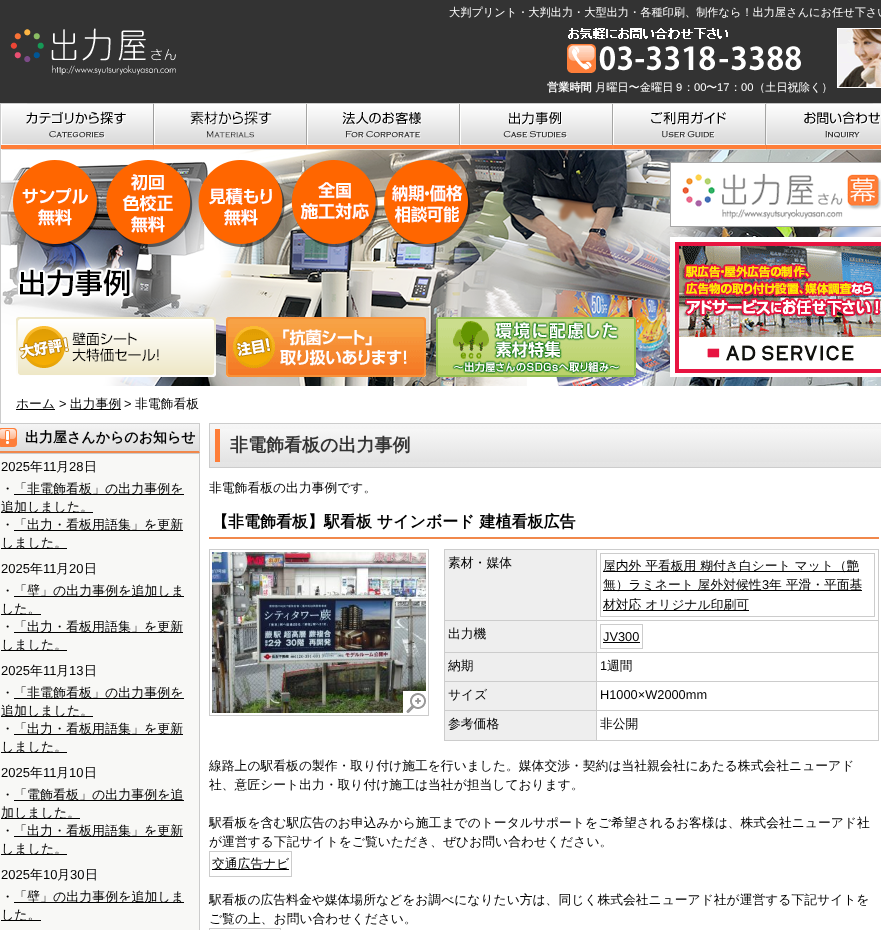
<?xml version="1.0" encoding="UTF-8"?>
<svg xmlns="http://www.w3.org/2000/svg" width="881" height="930">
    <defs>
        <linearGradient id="g1" gradientUnits="userSpaceOnUse" x1="549" y1="424" x2="549" y2="467"><stop offset="0" stop-color="#F7F7F7"/><stop offset="1" stop-color="#E3E3E3"/></linearGradient>
        <linearGradient id="g2" gradientUnits="userSpaceOnUse" x1="552" y1="429" x2="552" y2="462"><stop offset="0" stop-color="#F7F7F7"/><stop offset="1" stop-color="#E3E3E3"/></linearGradient>
    </defs>
    <rect width="100%" height="100%" fill="#FFFFFF"/>
    <rect x="0" y="0" width="881" height="103" fill="#333333"/>
    <text x="449" y="16" font-family="WenQuanYi Zen Hei" font-size="11.2" font-weight="500" fill="#FFFFFF">大判プリント・大判出力・大型出力・各種印刷、制作なら！出力屋さんにお任せ下さい</text>
    <image x="10" y="28" width="166" height="47" href="img_01.png"/>
    <image x="567" y="28" width="234" height="45" href="img_02.png"/>
    <image x="837" y="28" width="44" height="60" href="img_03.png"/>
    <text x="547" y="91" font-family="WenQuanYi Zen Hei" font-size="11.2" font-weight="700" fill="#FFFFFF">営業時間</text>
    <text x="595" y="91" font-family="WenQuanYi Zen Hei" font-size="11.2" font-weight="500" fill="#FFFFFF">月曜日〜金曜日</text>
    <text x="676" y="91" font-family="Liberation Sans" font-size="11.2" fill="#FFFFFF">9</text>
    <text x="683" y="91" font-family="WenQuanYi Zen Hei" font-size="11.2" font-weight="500" fill="#FFFFFF">：</text>
    <text x="694" y="91" font-family="Liberation Sans" font-size="11.2" fill="#FFFFFF">00</text>
    <text x="706" y="91" font-family="WenQuanYi Zen Hei" font-size="11.2" font-weight="500" fill="#FFFFFF">〜</text>
    <text x="717" y="91" font-family="Liberation Sans" font-size="11.2" fill="#FFFFFF">17</text>
    <text x="730" y="91" font-family="WenQuanYi Zen Hei" font-size="11.2" font-weight="500" fill="#FFFFFF">：</text>
    <text x="741" y="91" font-family="Liberation Sans" font-size="11.2" fill="#FFFFFF">00</text>
    <text x="754" y="91" font-family="WenQuanYi Zen Hei" font-size="11.2" font-weight="500" fill="#FFFFFF">（土日祝除く）</text>
    <image x="0" y="103" width="154" height="47" href="img_04.png"/>
    <image x="154" y="103" width="153" height="47" href="img_05.png"/>
    <image x="307" y="103" width="153" height="47" href="img_06.png"/>
    <image x="460" y="103" width="153" height="47" href="img_07.png"/>
    <image x="613" y="103" width="153" height="47" href="img_08.png"/>
    <image x="766" y="103" width="115" height="47" href="img_09.png"/>
    <image x="0" y="150" width="881" height="236" href="img_10.png"/>
    <image x="16" y="317" width="200" height="60" href="img_11.png"/>
    <image x="226" y="317" width="200" height="60" href="img_12.png"/>
    <image x="436" y="317" width="200" height="60" href="img_13.png"/>
    <image x="670" y="162" width="211" height="65" href="img_14.png"/>
    <image x="670" y="237" width="211" height="140" href="img_15.png"/>
    <rect x="0" y="386" width="1" height="37" fill="#CCCCCC"/>
    <rect x="16" y="409" width="39" height="1" fill="#000000"/>
    <text x="16" y="408" font-family="WenQuanYi Zen Hei" font-size="12.8" font-weight="500" fill="#000000">ホーム</text>
    <text x="59" y="408" font-family="Liberation Sans" font-size="12.8" fill="#000000">&gt;</text>
    <rect x="70" y="409" width="51" height="1" fill="#000000"/>
    <text x="70" y="408" font-family="WenQuanYi Zen Hei" font-size="12.8" font-weight="500" fill="#000000">出力事例</text>
    <text x="124" y="408" font-family="Liberation Sans" font-size="12.8" fill="#000000">&gt;</text>
    <text x="135" y="408" font-family="WenQuanYi Zen Hei" font-size="12.8" font-weight="500" fill="#000000">非電飾看板</text>
    <image x="0" y="424" width="200" height="29" href="img_16.png"/>
    <rect x="0" y="423" width="200" height="1" fill="#CCCCCC"/>
    <path d="M 200 423 V 453 L 199 451 V 424 Z" fill="#CCCCCC"/>
    <path d="M 200 453 H -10 L -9 451 H 199 Z" fill="#F1884B"/>
    <text x="25" y="442" font-family="WenQuanYi Zen Hei" font-size="14" font-weight="700" fill="#000000">出力屋さんからのお知らせ</text>
    <rect x="-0.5" y="453.5" width="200" height="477" fill="#F8F8F6" stroke="#CCCCCC"/>
    <text x="1" y="471" font-family="Liberation Sans" font-size="13" fill="#000000">2025</text>
    <text x="30" y="471" font-family="WenQuanYi Zen Hei" font-size="13" font-weight="500" fill="#000000">年</text>
    <text x="43" y="471" font-family="Liberation Sans" font-size="13" fill="#000000">11</text>
    <text x="56" y="471" font-family="WenQuanYi Zen Hei" font-size="13" font-weight="500" fill="#000000">月</text>
    <text x="69" y="471" font-family="Liberation Sans" font-size="13" fill="#000000">28</text>
    <text x="84" y="471" font-family="WenQuanYi Zen Hei" font-size="13" font-weight="500" fill="#000000">日</text>
    <text x="1" y="493" font-family="WenQuanYi Zen Hei" font-size="13" font-weight="500" fill="#000000">・</text>
    <rect x="14" y="494" width="170" height="1" fill="#000000"/>
    <text x="14" y="493" font-family="WenQuanYi Zen Hei" font-size="13" font-weight="500" fill="#000000">「非電飾看板」の出力事例を</text>
    <rect x="1" y="512" width="92" height="1" fill="#000000"/>
    <text font-family="WenQuanYi Zen Hei" font-size="13" font-weight="500" fill="#000000">
        <tspan x="1" y="511">追加しました。</tspan>
        <tspan x="1" y="529">・</tspan>
    </text>
    <rect x="14" y="530" width="169" height="1" fill="#000000"/>
    <text x="14" y="529" font-family="WenQuanYi Zen Hei" font-size="13" font-weight="500" fill="#000000">「出力・看板用語集」を更新</text>
    <rect x="1" y="548" width="66" height="1" fill="#000000"/>
    <text x="1" y="547" font-family="WenQuanYi Zen Hei" font-size="13" font-weight="500" fill="#000000">しました。</text>
    <text x="1" y="573" font-family="Liberation Sans" font-size="13" fill="#000000">2025</text>
    <text x="30" y="573" font-family="WenQuanYi Zen Hei" font-size="13" font-weight="500" fill="#000000">年</text>
    <text x="43" y="573" font-family="Liberation Sans" font-size="13" fill="#000000">11</text>
    <text x="56" y="573" font-family="WenQuanYi Zen Hei" font-size="13" font-weight="500" fill="#000000">月</text>
    <text x="69" y="573" font-family="Liberation Sans" font-size="13" fill="#000000">20</text>
    <text x="84" y="573" font-family="WenQuanYi Zen Hei" font-size="13" font-weight="500" fill="#000000">日</text>
    <text x="1" y="595" font-family="WenQuanYi Zen Hei" font-size="13" font-weight="500" fill="#000000">・</text>
    <rect x="14" y="596" width="170" height="1" fill="#000000"/>
    <text x="14" y="595" font-family="WenQuanYi Zen Hei" font-size="13" font-weight="500" fill="#000000">「壁」の出力事例を追加しま</text>
    <rect x="1" y="614" width="40" height="1" fill="#000000"/>
    <text font-family="WenQuanYi Zen Hei" font-size="13" font-weight="500" fill="#000000">
        <tspan x="1" y="613">した。</tspan>
        <tspan x="1" y="631">・</tspan>
    </text>
    <rect x="14" y="632" width="169" height="1" fill="#000000"/>
    <text x="14" y="631" font-family="WenQuanYi Zen Hei" font-size="13" font-weight="500" fill="#000000">「出力・看板用語集」を更新</text>
    <rect x="1" y="650" width="66" height="1" fill="#000000"/>
    <text x="1" y="649" font-family="WenQuanYi Zen Hei" font-size="13" font-weight="500" fill="#000000">しました。</text>
    <text x="1" y="675" font-family="Liberation Sans" font-size="13" fill="#000000">2025</text>
    <text x="30" y="675" font-family="WenQuanYi Zen Hei" font-size="13" font-weight="500" fill="#000000">年</text>
    <text x="43" y="675" font-family="Liberation Sans" font-size="13" fill="#000000">11</text>
    <text x="56" y="675" font-family="WenQuanYi Zen Hei" font-size="13" font-weight="500" fill="#000000">月</text>
    <text x="69" y="675" font-family="Liberation Sans" font-size="13" fill="#000000">13</text>
    <text x="84" y="675" font-family="WenQuanYi Zen Hei" font-size="13" font-weight="500" fill="#000000">日</text>
    <text x="1" y="697" font-family="WenQuanYi Zen Hei" font-size="13" font-weight="500" fill="#000000">・</text>
    <rect x="14" y="698" width="170" height="1" fill="#000000"/>
    <text x="14" y="697" font-family="WenQuanYi Zen Hei" font-size="13" font-weight="500" fill="#000000">「非電飾看板」の出力事例を</text>
    <rect x="1" y="716" width="92" height="1" fill="#000000"/>
    <text font-family="WenQuanYi Zen Hei" font-size="13" font-weight="500" fill="#000000">
        <tspan x="1" y="715">追加しました。</tspan>
        <tspan x="1" y="733">・</tspan>
    </text>
    <rect x="14" y="734" width="169" height="1" fill="#000000"/>
    <text x="14" y="733" font-family="WenQuanYi Zen Hei" font-size="13" font-weight="500" fill="#000000">「出力・看板用語集」を更新</text>
    <rect x="1" y="752" width="66" height="1" fill="#000000"/>
    <text x="1" y="751" font-family="WenQuanYi Zen Hei" font-size="13" font-weight="500" fill="#000000">しました。</text>
    <text x="1" y="777" font-family="Liberation Sans" font-size="13" fill="#000000">2025</text>
    <text x="30" y="777" font-family="WenQuanYi Zen Hei" font-size="13" font-weight="500" fill="#000000">年</text>
    <text x="43" y="777" font-family="Liberation Sans" font-size="13" fill="#000000">11</text>
    <text x="56" y="777" font-family="WenQuanYi Zen Hei" font-size="13" font-weight="500" fill="#000000">月</text>
    <text x="69" y="777" font-family="Liberation Sans" font-size="13" fill="#000000">10</text>
    <text x="84" y="777" font-family="WenQuanYi Zen Hei" font-size="13" font-weight="500" fill="#000000">日</text>
    <text x="1" y="799" font-family="WenQuanYi Zen Hei" font-size="13" font-weight="500" fill="#000000">・</text>
    <rect x="14" y="800" width="170" height="1" fill="#000000"/>
    <text x="14" y="799" font-family="WenQuanYi Zen Hei" font-size="13" font-weight="500" fill="#000000">「電飾看板」の出力事例を追</text>
    <rect x="1" y="818" width="79" height="1" fill="#000000"/>
    <text font-family="WenQuanYi Zen Hei" font-size="13" font-weight="500" fill="#000000">
        <tspan x="1" y="817">加しました。</tspan>
        <tspan x="1" y="835">・</tspan>
    </text>
    <rect x="14" y="836" width="169" height="1" fill="#000000"/>
    <text x="14" y="835" font-family="WenQuanYi Zen Hei" font-size="13" font-weight="500" fill="#000000">「出力・看板用語集」を更新</text>
    <rect x="1" y="854" width="66" height="1" fill="#000000"/>
    <text x="1" y="853" font-family="WenQuanYi Zen Hei" font-size="13" font-weight="500" fill="#000000">しました。</text>
    <text x="1" y="879" font-family="Liberation Sans" font-size="13" fill="#000000">2025</text>
    <text x="30" y="879" font-family="WenQuanYi Zen Hei" font-size="13" font-weight="500" fill="#000000">年</text>
    <text x="43" y="879" font-family="Liberation Sans" font-size="13" fill="#000000">10</text>
    <text x="57" y="879" font-family="WenQuanYi Zen Hei" font-size="13" font-weight="500" fill="#000000">月</text>
    <text x="70" y="879" font-family="Liberation Sans" font-size="13" fill="#000000">30</text>
    <text x="85" y="879" font-family="WenQuanYi Zen Hei" font-size="13" font-weight="500" fill="#000000">日</text>
    <text x="1" y="901" font-family="WenQuanYi Zen Hei" font-size="13" font-weight="500" fill="#000000">・</text>
    <rect x="14" y="902" width="170" height="1" fill="#000000"/>
    <text x="14" y="901" font-family="WenQuanYi Zen Hei" font-size="13" font-weight="500" fill="#000000">「壁」の出力事例を追加しま</text>
    <rect x="1" y="920" width="40" height="1" fill="#000000"/>
    <text x="1" y="919" font-family="WenQuanYi Zen Hei" font-size="13" font-weight="500" fill="#000000">した。</text>
    <rect x="210" y="424" width="671" height="43" fill="url(#g1)"/>
    <rect x="209.5" y="423.5" width="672" height="44" fill="none" stroke="#CCCCCC"/>
    <rect x="220" y="429" width="661" height="33" fill="url(#g2)"/>
    <rect x="215" y="429" width="5" height="33" fill="#FE7E39"/>
    <text x="230" y="451" font-family="WenQuanYi Zen Hei" font-size="18" font-weight="700" fill="#333333">非電飾看板の出力事例</text>
    <text x="209" y="492" font-family="WenQuanYi Zen Hei" font-size="12.8" font-weight="500" fill="#000000">非電飾看板の出力事例です。</text>
    <rect x="209" y="537" width="670" height="2" fill="#F1884B"/>
    <text x="212" y="527" font-family="WenQuanYi Zen Hei" font-size="16" font-weight="700" fill="#000000">【非電飾看板】駅看板 サインボード 建植看板広告</text>
    <rect x="209.5" y="549.5" width="219" height="166" fill="none" stroke="#CCCCCC"/>
    <image x="212" y="552" width="214" height="161" href="img_17.png"/>
    <image x="403" y="691" width="23" height="22" href="img_18.png"/>
    <rect x="445" y="550" width="151" height="190" fill="#EEEEEE"/>
    <rect x="878" y="549" width="1" height="192" fill="#CCCCCC"/>
    <rect x="444" y="740" width="435" height="1" fill="#CCCCCC"/>
    <rect x="444" y="549" width="1" height="192" fill="#CCCCCC"/>
    <text x="448" y="567" font-family="WenQuanYi Zen Hei" font-size="12.8" font-weight="500" fill="#000000">素材・媒体</text>
    <rect x="445" y="549" width="433" height="1" fill="#CCCCCC"/>
    <rect x="596" y="549" width="1" height="71" fill="#CCCCCC"/>
    <rect x="600.5" y="553.5" width="274" height="63" fill="none" stroke="#CCCCCC"/>
    <rect x="603" y="571" width="256" height="1" fill="#000000"/>
    <text x="603" y="570" font-family="WenQuanYi Zen Hei" font-size="12.8" font-weight="500" fill="#000000">屋内外 平看板用 糊付き白シート マット（艶</text>
    <rect x="603" y="590" width="259" height="1" fill="#000000"/>
    <text x="603" y="589" font-family="WenQuanYi Zen Hei" font-size="12.8" font-weight="500" fill="#000000">無）ラミネート 屋外対候性</text>
    <text x="762" y="589" font-family="Liberation Sans" font-size="12.8" fill="#000000">3</text>
    <text x="769" y="589" font-family="WenQuanYi Zen Hei" font-size="12.8" font-weight="500" fill="#000000">年 平滑・平面基</text>
    <rect x="603" y="610" width="146" height="1" fill="#000000"/>
    <text x="603" y="609" font-family="WenQuanYi Zen Hei" font-size="12.8" font-weight="500" fill="#000000">材対応 オリジナル印刷可</text>
    <text x="448" y="638" font-family="WenQuanYi Zen Hei" font-size="12.8" font-weight="500" fill="#000000">出力機</text>
    <rect x="445" y="620" width="433" height="1" fill="#CCCCCC"/>
    <rect x="596" y="620" width="1" height="32" fill="#CCCCCC"/>
    <rect x="600.5" y="624.5" width="42" height="24" fill="none" stroke="#CCCCCC"/>
    <text x="603" y="641" font-family="Liberation Sans" font-size="12.8" fill="#000000">JV300</text>
    <rect x="603" y="642" width="37" height="1" fill="#000000"/>
    <text x="448" y="670" font-family="WenQuanYi Zen Hei" font-size="12.8" font-weight="500" fill="#000000">納期</text>
    <rect x="445" y="652" width="433" height="1" fill="#CCCCCC"/>
    <rect x="596" y="652" width="1" height="29" fill="#CCCCCC"/>
    <text x="600" y="670" font-family="Liberation Sans" font-size="12.8" fill="#000000">1</text>
    <text x="607" y="670" font-family="WenQuanYi Zen Hei" font-size="12.8" font-weight="500" fill="#000000">週間</text>
    <text x="448" y="699" font-family="WenQuanYi Zen Hei" font-size="12.8" font-weight="500" fill="#000000">サイズ</text>
    <rect x="445" y="681" width="433" height="1" fill="#CCCCCC"/>
    <rect x="596" y="681" width="1" height="29" fill="#CCCCCC"/>
    <text x="600" y="699" font-family="Liberation Sans" font-size="12.8" fill="#000000">H1000×W2000mm</text>
    <text x="448" y="728" font-family="WenQuanYi Zen Hei" font-size="12.8" font-weight="500" fill="#000000">参考価格</text>
    <rect x="445" y="710" width="433" height="1" fill="#CCCCCC"/>
    <rect x="596" y="710" width="1" height="30" fill="#CCCCCC"/>
    <text x="600" y="728" font-family="WenQuanYi Zen Hei" font-size="12.8" font-weight="500" fill="#000000">非公開</text>
    <text font-family="WenQuanYi Zen Hei" font-size="12.8" font-weight="500" fill="#000000">
        <tspan x="209" y="770">線路上の駅看板の製作・取り付け施工を行いました。媒体交渉・契約は当社親会社にあたる株式会社ニューアド</tspan>
        <tspan x="209" y="789">社、意匠シート出力・取り付け施工は当社が担当しております。</tspan>
    </text>
    <text font-family="WenQuanYi Zen Hei" font-size="12.8" font-weight="500" fill="#000000">
        <tspan x="209" y="827">駅看板を含む駅広告のお申込みから施工までのトータルサポートをご希望されるお客様は、株式会社ニューアド社</tspan>
        <tspan x="209" y="846">が運営する下記サイトをご覧いただき、ぜひお問い合わせください。</tspan>
    </text>
    <rect x="209.5" y="851.5" width="82" height="25" fill="none" stroke="#CCCCCC"/>
    <rect x="212" y="869" width="77" height="1" fill="#000000"/>
    <text x="212" y="868" font-family="WenQuanYi Zen Hei" font-size="12.8" font-weight="500" fill="#000000">交通広告ナビ</text>
    <text font-family="WenQuanYi Zen Hei" font-size="12.8" font-weight="500" fill="#000000">
        <tspan x="209" y="904">駅看板の広告料金や媒体場所などをお調べになりたい方は、同じく株式会社ニューアド社が運営する下記サイトを</tspan>
        <tspan x="209" y="923">ご覧の上、お問い合わせください。</tspan>
    </text>
    <rect x="209.5" y="928.5" width="71" height="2" fill="none" stroke="#CCCCCC"/>
</svg>
